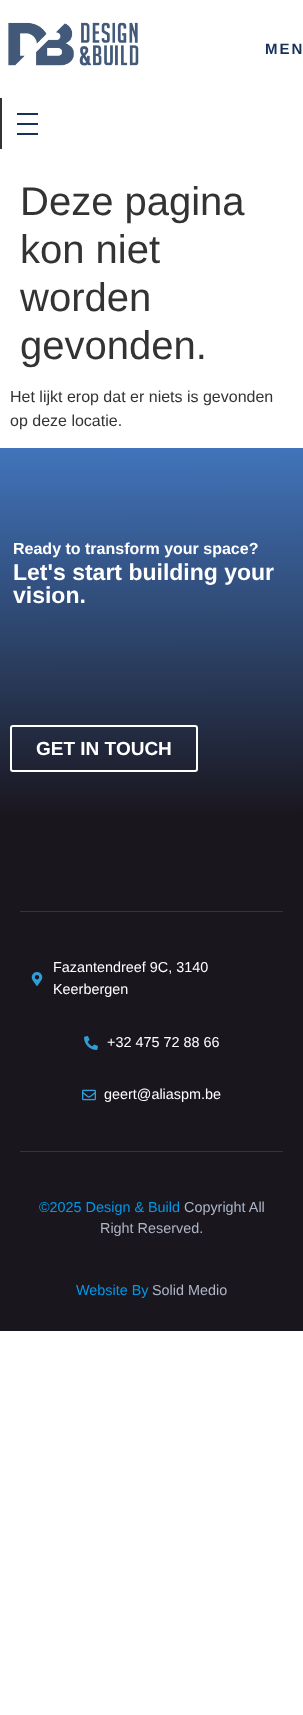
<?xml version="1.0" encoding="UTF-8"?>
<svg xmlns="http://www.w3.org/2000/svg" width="303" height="1715">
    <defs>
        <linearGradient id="g1" gradientUnits="userSpaceOnUse" x1="151" y1="448" x2="152" y2="876"><stop offset="0" stop-color="#4174BB"/><stop offset="0.86" stop-color="#1A161E"/></linearGradient>
    </defs>
    <rect width="100%" height="100%" fill="#FFFFFF"/>
    <image x="8" y="22" width="131" height="44" href="img_01.png"/>
    <text x="265" y="54" font-family="Liberation Sans" font-size="15" font-weight="700" letter-spacing="2" fill="#17315B">MEN</text>
    <rect x="0" y="98" width="2" height="51" fill="#333333"/>
    <rect x="17" y="123" width="21" height="2" fill="#17315B"/>
    <rect x="17" y="113" width="21" height="2" fill="#17315B"/>
    <rect x="17" y="133" width="21" height="2" fill="#17315B"/>
    <text font-family="Liberation Sans" font-size="40" fill="#333333">
        <tspan x="20" y="215">Deze pagina</tspan>
        <tspan x="20" y="263">kon niet</tspan>
        <tspan x="20" y="311">worden</tspan>
        <tspan x="20" y="359">gevonden.</tspan>
    </text>
    <text font-family="Liberation Sans" font-size="16" fill="#333333">
        <tspan x="10" y="402">Het lijkt erop dat er niets is gevonden</tspan>
        <tspan x="10" y="426">op deze locatie.</tspan>
    </text>
    <rect x="0" y="448" width="303" height="428" fill="url(#g1)"/>
    <text x="13" y="554" font-family="Liberation Sans" font-size="16" font-weight="700" fill="#FFFFFF">Ready to transform your space?</text>
    <text font-family="Liberation Sans" font-size="23" font-weight="700" fill="#FFFFFF">
        <tspan x="13" y="580">Let's start building your</tspan>
        <tspan x="13" y="603">vision.</tspan>
    </text>
    <rect x="11" y="726" width="186" height="45" rx="2" fill="none" stroke="#FFFFFF" stroke-width="2"/>
    <text x="36" y="755" font-family="Liberation Sans" font-size="19" font-weight="700" fill="#FFFFFF">GET IN TOUCH</text>
    <rect x="0" y="876" width="303" height="455" fill="#1A161E"/>
    <rect x="20" y="911" width="263" height="1" fill="#38343B"/>
    <image x="31" y="972" width="12" height="14" href="img_02.png"/>
    <text font-family="Liberation Sans" font-size="14.4" fill="#FFFFFF">
        <tspan x="53" y="972">Fazantendreef 9C, 3140</tspan>
        <tspan x="53" y="994">Keerbergen</tspan>
    </text>
    <image x="84" y="1036" width="14" height="14" href="img_03.png"/>
    <text x="107" y="1047" font-family="Liberation Sans" font-size="14.4" fill="#FFFFFF">+32 475 72 88 66</text>
    <image x="82" y="1089" width="14" height="12" href="img_04.png"/>
    <text x="104" y="1099" font-family="Liberation Sans" font-size="14.4" fill="#FFFFFF">geert@aliaspm.be</text>
    <rect x="20" y="1151" width="263" height="1" fill="#38343B"/>
    <text x="39" y="1212" font-family="Liberation Sans" font-size="14.4" fill="#0299E9">©2025 Design &amp; Build</text>
    <text x="184" y="1212" font-family="Liberation Sans" font-size="14.4" fill="#ADB5C6">Copyright All</text>
    <text x="100" y="1233" font-family="Liberation Sans" font-size="14.4" fill="#ADB5C6">Right Reserved.</text>
    <text x="76" y="1295" font-family="Liberation Sans" font-size="14.4" fill="#0299E9">Website By</text>
    <text x="152" y="1295" font-family="Liberation Sans" font-size="14.4" fill="#ADB5C6">Solid Medio</text>
</svg>
